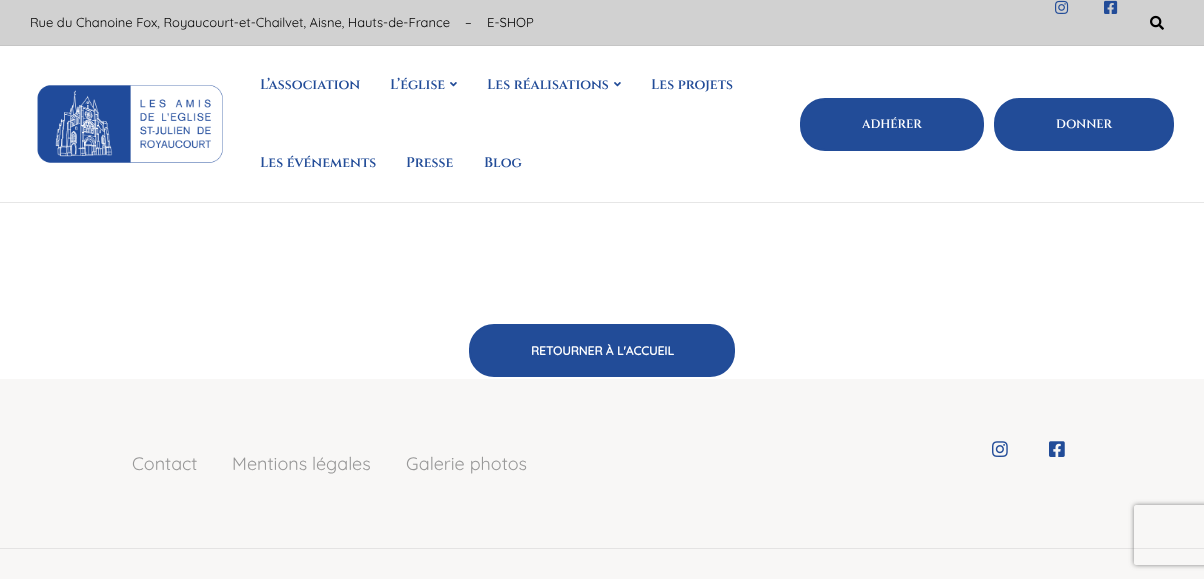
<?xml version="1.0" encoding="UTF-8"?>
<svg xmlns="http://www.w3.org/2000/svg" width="1204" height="579">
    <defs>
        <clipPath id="clip1"><path d="M 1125 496 H 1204 V 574 H 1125 Z M 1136 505 H 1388 C 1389 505 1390 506 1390 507 V 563 C 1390 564 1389 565 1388 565 H 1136 C 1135 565 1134 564 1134 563 V 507 C 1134 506 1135 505 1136 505 Z" clip-rule="evenodd"/></clipPath>
        <filter id="blur1" x="-50%" y="-200%" width="200%" height="500%"><feGaussianBlur stdDeviation="2.5"/></filter>
    </defs>
    <rect width="100%" height="100%" fill="#F8F7F6"/>
    <rect x="0" y="202" width="1204" height="1" fill="#E6E6E6"/>
    <rect x="0" y="0" width="1204" height="45" fill="#D1D1D1"/>
    <rect x="0" y="45" width="1204" height="1" fill="#C5C5C5"/>
    <image x="1055" y="0" width="14" height="14" href="img_01.png"/>
    <image x="1104" y="0" width="14" height="14" href="img_02.png"/>
    <text x="30" y="27" font-family="Quicksand" font-size="13" fill="#000000">Rue du Chanoine Fox, Royaucourt-et-Chailvet, Aisne, Hauts-de-France</text>
    <text x="465" y="27" font-family="Quicksand" font-size="13" fill="#000000">–</text>
    <text x="487" y="27" font-family="Quicksand" font-size="13" fill="#000000">E-SHOP</text>
    <image x="1150" y="15" width="14" height="15" href="img_03.png"/>
    <rect x="0" y="46" width="1204" height="156" fill="#FFFFFF"/>
    <image x="37" y="85" width="186" height="78" href="img_04.png"/>
    <text x="260" y="89" font-family="Cinzel" font-size="14" font-weight="600" fill="#224C98">L’association</text>
    <text x="390" y="89" font-family="Cinzel" font-size="14" font-weight="600" fill="#224C98">L’église</text>
    <image x="450" y="82" width="7" height="5" href="img_05.png"/>
    <text x="487" y="89" font-family="Cinzel" font-size="14" font-weight="600" fill="#224C98">Les réalisations</text>
    <image x="614" y="82" width="7" height="5" href="img_05.png"/>
    <text x="651" y="89" font-family="Cinzel" font-size="14" font-weight="600" fill="#224C98">Les projets</text>
    <text x="260" y="167" font-family="Cinzel" font-size="14" font-weight="600" fill="#224C98">Les événements</text>
    <text x="406" y="167" font-family="Cinzel" font-size="14" font-weight="600" fill="#224C98">Presse</text>
    <text x="484" y="167" font-family="Cinzel" font-size="14" font-weight="600" fill="#224C98">Blog</text>
    <rect x="801" y="99" width="182" height="51" rx="24" fill="#224C98" stroke="#224C98" stroke-width="2"/>
    <text x="862" y="128" font-family="Cinzel" font-size="12" font-weight="600" fill="#FFFFFF">ADHÉRER</text>
    <rect x="995" y="99" width="178" height="51" rx="24" fill="#224C98" stroke="#224C98" stroke-width="2"/>
    <text x="1056" y="128" font-family="Cinzel" font-size="12" font-weight="600" fill="#FFFFFF">DONNER</text>
    <rect x="0" y="203" width="1204" height="176" fill="#FFFFFF"/>
    <rect x="470" y="325" width="264" height="51" rx="24" fill="#224C98" stroke="#224C98" stroke-width="2"/>
    <text x="531" y="355" font-family="Quicksand" font-size="12" font-weight="700" fill="#FFFFFF">RETOURNER À L'ACCUEIL</text>
    <image x="992" y="441" width="16" height="16" href="img_06.png"/>
    <image x="1049" y="441" width="16" height="16" href="img_07.png"/>
    <text x="132" y="470" font-family="Quicksand" font-size="18" fill="#989898">Contact</text>
    <text x="232" y="470" font-family="Quicksand" font-size="18" fill="#989898">Mentions légales</text>
    <text x="406" y="470" font-family="Quicksand" font-size="18" fill="#989898">Galerie photos</text>
    <rect x="0" y="548" width="1204" height="1" fill="#E4E3E3"/>
    <g clip-path="url(#clip1)">
        <rect x="1134" y="505" width="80" height="60" rx="2" fill="#808080" filter="url(#blur1)"/>
    </g>
</svg>
